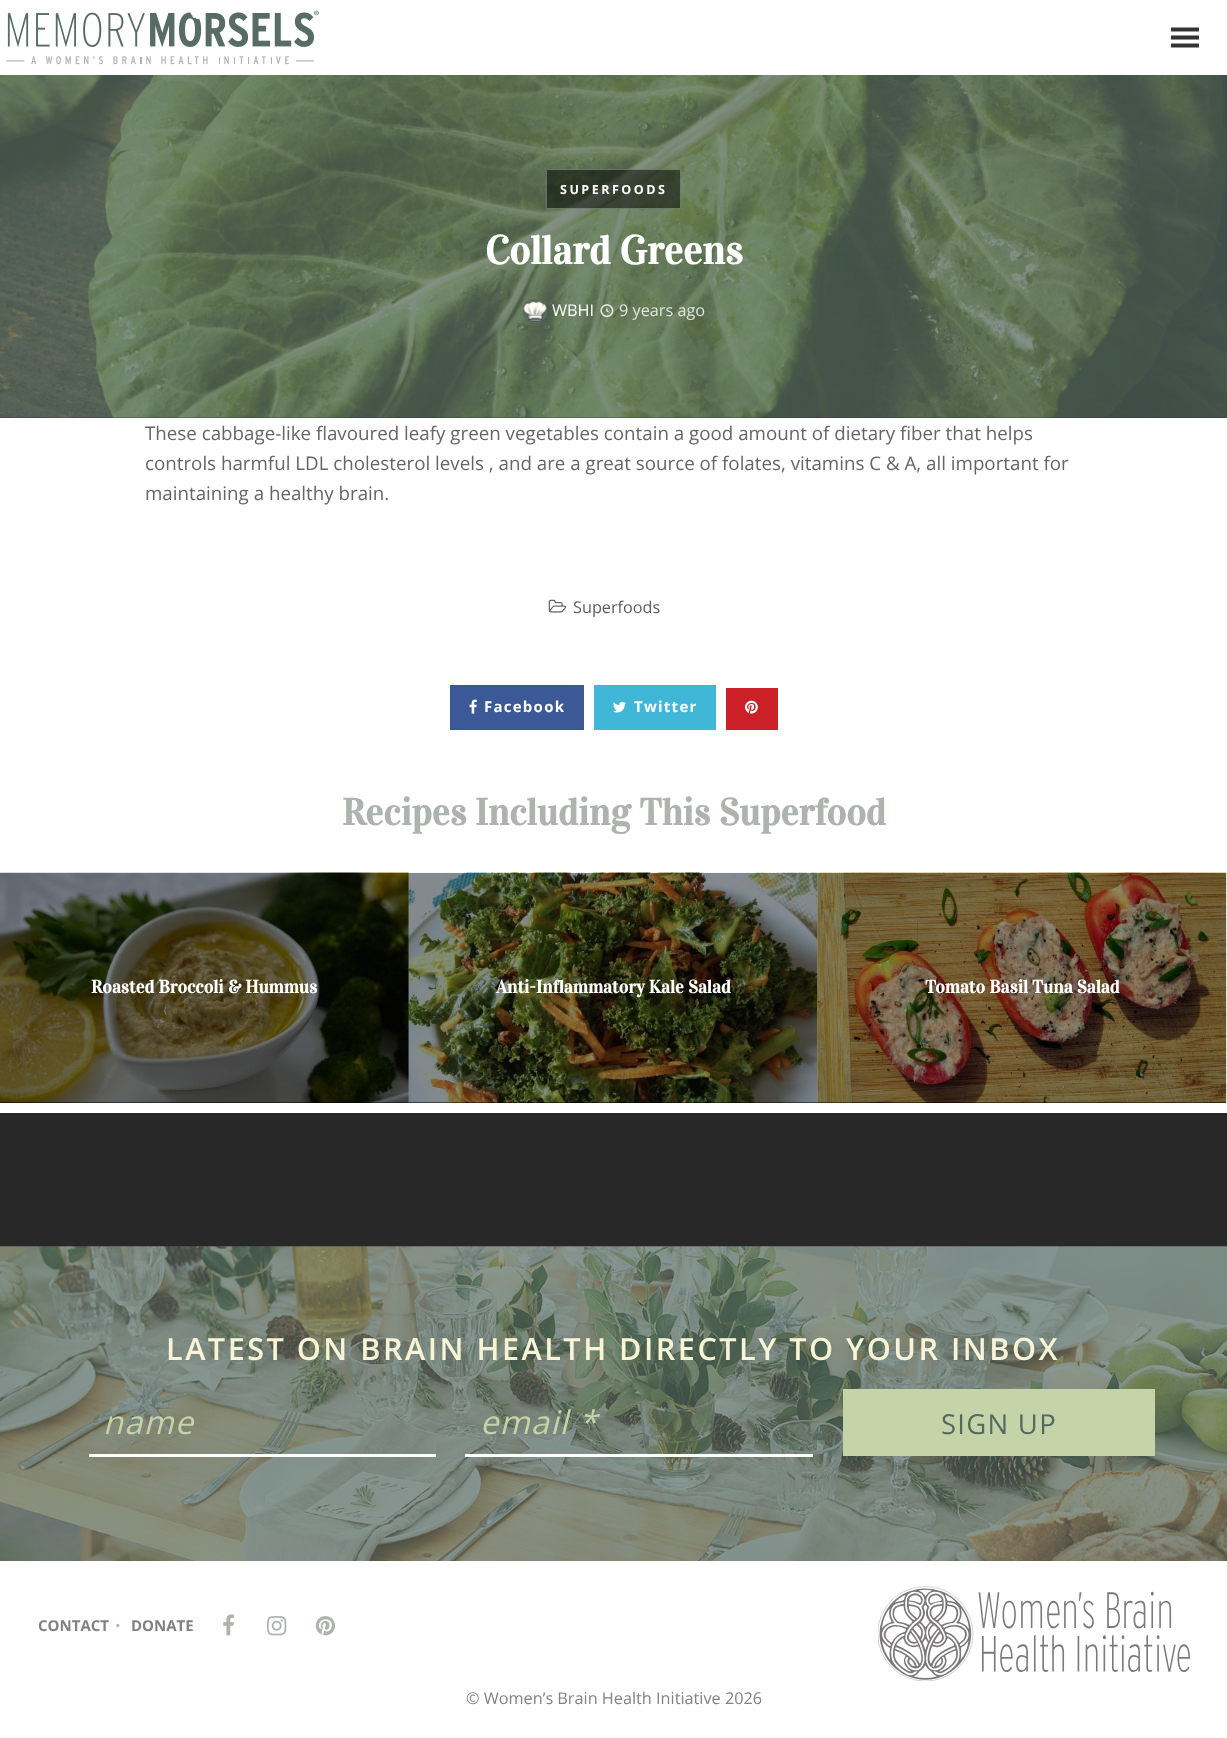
<?xml version="1.0" encoding="UTF-8"?>
<svg xmlns="http://www.w3.org/2000/svg" width="1227" height="1738">
    <rect width="100%" height="100%" fill="#282828"/>
    <rect x="0" y="0" width="1227" height="75" fill="#FFFFFF"/>
    <image x="6" y="10" width="313" height="55" href="img_01.png"/>
    <image x="1171" y="27" width="28" height="21" href="img_02.png"/>
    <image x="0" y="417" width="1227" height="1" href="img_03.png"/>
    <image x="0" y="75" width="1227" height="343" href="img_04.png"/>
    <rect x="546" y="169" width="135" height="40" fill="#000000" fill-opacity="0.5"/>
    <rect x="546.5" y="169.5" width="134" height="39" fill="none" stroke="#FFFFFF" stroke-opacity="0.3"/>
    <text x="560" y="194" font-family="Open Sans" font-size="12.5" font-weight="700" letter-spacing="2.5" fill="#FFFFFF">SUPERFOODS</text>
    <text x="485" y="264" font-family="Vidaloka" font-size="40" font-weight="700" fill="#FFFFFF">Collard Greens</text>
    <image x="522" y="299" width="26" height="25" href="img_05.png"/>
    <text x="552" y="316" font-family="Open Sans" font-size="16.25" fill="#FFFFFF">WBHI</text>
    <image x="600" y="304" width="14" height="14" href="img_06.png"/>
    <text x="619" y="316" font-family="Open Sans" font-size="16.25" fill="#E0E4DD">9 years ago</text>
    <rect x="0" y="418" width="1227" height="695" fill="#FFFFFF"/>
    <text font-family="Open Sans" font-size="18.75" fill="#666666">
        <tspan x="145" y="440">These cabbage-like flavoured leafy green vegetables contain a good amount of dietary fiber that helps</tspan>
        <tspan x="145" y="470">controls harmful LDL cholesterol levels , and are a great source of folates, vitamins C &amp; A, all important for</tspan>
        <tspan x="145" y="500">maintaining a healthy brain.</tspan>
    </text>
    <image x="548" y="599" width="18" height="14" href="img_07.png"/>
    <text x="573" y="613" font-family="Open Sans" font-size="16.25" fill="#5C5C5C">Superfoods</text>
    <rect x="450" y="685" width="134" height="45" fill="#3B5997"/>
    <image x="469" y="699" width="8" height="15" href="img_08.png"/>
    <text x="484" y="712" font-family="Open Sans" font-size="15" font-weight="700" letter-spacing="1.25" fill="#FFFFFF">Facebook</text>
    <rect x="594" y="685" width="122" height="45" fill="#41B7D8"/>
    <image x="613" y="701" width="13" height="12" href="img_09.png"/>
    <text x="634" y="712" font-family="Open Sans" font-size="15" font-weight="700" letter-spacing="1.25" fill="#FFFFFF">Twitter</text>
    <rect x="726" y="688" width="52" height="42" fill="#CB2027"/>
    <image x="745" y="700" width="13" height="14" href="img_10.png"/>
    <text x="342" y="825" font-family="Vidaloka" font-size="37.5" font-weight="700" fill="#AEB3B0">Recipes Including This Superfood</text>
    <rect x="0" y="873" width="818" height="230" fill="#000000"/>
    <image x="0" y="872" width="409" height="231" href="img_11.png"/>
    <text x="91" y="993" font-family="Vidaloka" font-size="18.25" font-weight="700" fill="#FFFFFF">Roasted Broccoli &amp; Hummus</text>
    <image x="408" y="872" width="410" height="231" href="img_12.png"/>
    <text x="496" y="993" font-family="Vidaloka" font-size="18.25" font-weight="700" fill="#FFFFFF">Anti-Inflammatory Kale Salad</text>
    <rect x="818" y="1102" width="408" height="1" fill="#000000"/>
    <image x="817" y="872" width="410" height="231" href="img_13.png"/>
    <text x="925" y="993" font-family="Vidaloka" font-size="18.25" font-weight="700" fill="#FFFFFF">Tomato Basil Tuna Salad</text>
    <image x="0" y="1246" width="1227" height="315" href="img_14.png"/>
    <text x="166" y="1360" font-family="Open Sans" font-size="30.6" font-weight="600" letter-spacing="2.5" fill="#F8F4D7">LATEST ON BRAIN HEALTH DIRECTLY TO YOUR INBOX</text>
    <rect x="89" y="1454" width="347" height="3" fill="#FFFFFF"/>
    <text x="103" y="1434" font-family="Open Sans" font-size="32.5" font-style="italic" letter-spacing="1.25" fill="#C4D3A8">name</text>
    <rect x="465" y="1454" width="348" height="3" fill="#FFFFFF"/>
    <text x="480" y="1434" font-family="Open Sans" font-size="32.5" font-style="italic" letter-spacing="1.25" fill="#C4D3A8">email *</text>
    <rect x="843" y="1389" width="312" height="67" fill="#C4D3A8"/>
    <text x="941" y="1434" font-family="Open Sans" font-size="27.5" letter-spacing="1.25" fill="#53685F">SIGN UP</text>
    <rect x="0" y="1561" width="1227" height="177" fill="#FFFFFF"/>
    <text x="38" y="1631" font-family="Open Sans" font-size="15" font-weight="700" fill="#828282">CONTACT</text>
    <text x="115" y="1631" font-family="Open Sans" font-size="15" fill="#B8B8B8">•</text>
    <text x="131" y="1631" font-family="Open Sans" font-size="15" font-weight="700" fill="#828282">DONATE</text>
    <image x="223" y="1614" width="12" height="22" href="img_15.png"/>
    <image x="267" y="1616" width="20" height="20" href="img_16.png"/>
    <image x="315" y="1616" width="20" height="20" href="img_17.png"/>
    <image x="878" y="1586" width="312" height="95" href="img_18.png"/>
    <text x="466" y="1704" font-family="Open Sans" font-size="16.25" fill="#828282">© Women’s Brain Health Initiative 2026</text>
</svg>
